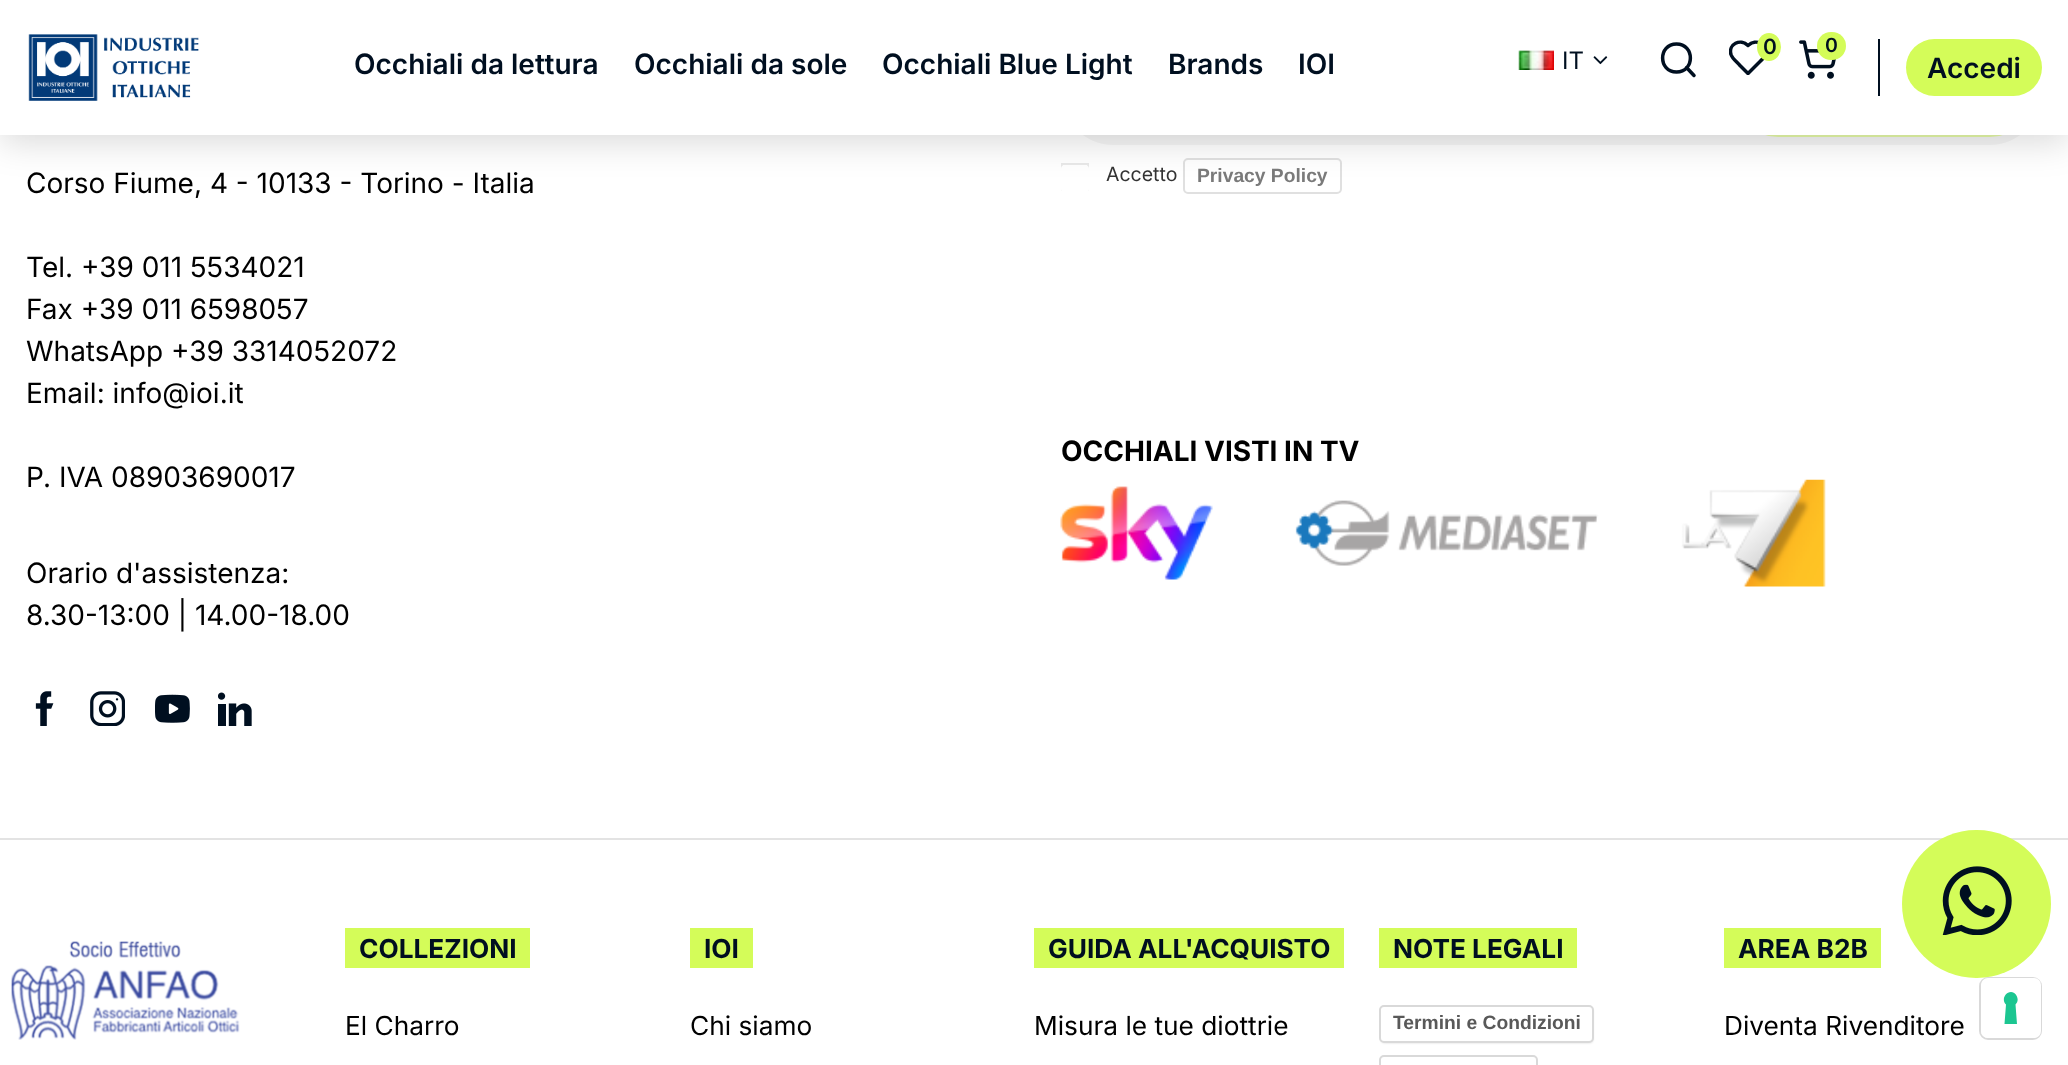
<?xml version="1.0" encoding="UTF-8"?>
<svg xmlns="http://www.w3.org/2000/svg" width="2068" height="1065">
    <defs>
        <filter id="blur1" x="-50%" y="-200%" width="200%" height="500%"><feGaussianBlur stdDeviation="17.5"/></filter>
        <clipPath id="clip1"><rect x="1729" y="40" width="39" height="35"/></clipPath>
        <filter id="blur2" x="-50%" y="-200%" width="200%" height="500%"><feGaussianBlur stdDeviation="1"/></filter>
    </defs>
    <rect width="100%" height="100%" fill="#FFFFFF"/>
    <rect x="1061" y="40" width="981" height="105" rx="52.5" fill="#F5F5F5"/>
    <rect x="1734" y="49" width="300" height="88" rx="44" fill="#E5F9A7"/>
    <rect x="1062" y="164" width="26" height="26" fill="none" stroke="#E9E9E9" stroke-width="2"/>
    <rect x="1062" y="166" width="26" height="26" rx="3" fill="#FFFFFF" stroke="#FFFFFF" stroke-width="2"/>
    <rect x="1184" y="159" width="157" height="34" rx="4" fill="none" stroke="#E0E0E0" stroke-width="2"/>
    <rect x="0" y="7" width="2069" height="135" fill="#000000" fill-opacity="0.15" filter="url(#blur1)"/>
    <rect x="0" y="0" width="2068" height="135" fill="#FFFFFF"/>
    <image x="28" y="34" width="171" height="67" href="img_01.png"/>
    <text x="354" y="74" font-family="Inter" font-size="28" font-weight="600" fill="#000F20">Occhiali da lettura</text>
    <text x="634" y="74" font-family="Inter" font-size="28" font-weight="600" fill="#000F20">Occhiali da sole</text>
    <text x="882" y="74" font-family="Inter" font-size="28" font-weight="600" fill="#000F20">Occhiali Blue Light</text>
    <text x="1168" y="74" font-family="Inter" font-size="28" font-weight="600" fill="#000F20">Brands</text>
    <text x="1298" y="74" font-family="Inter" font-size="28" font-weight="600" fill="#000F20">IOI</text>
    <image x="1518" y="50" width="36" height="20" href="img_02.png"/>
    <text x="1562" y="69" font-family="Inter" font-size="24" fill="#000F20">IT</text>
    <image x="1593" y="56" width="15" height="9" href="img_03.png"/>
    <path d="M 1676.5 72 C 1695 72 1695 44 1676.5 44 C 1658 44 1658 72 1676.5 72 Z M 1694 75.5 L 1686.5 67.5" fill="none" stroke="#000F20" stroke-width="3.5" stroke-linecap="round" stroke-linejoin="round"/>
    <g clip-path="url(#clip1)">
        <path d="M 1760.5 61 C 1762.5 59.5 1764.5 57 1765.5 54.5 C 1768.5 44.5 1756 38 1748 45.5 C 1740.5 38 1728 44 1731 54.5 C 1732.5 59 1737 62 1740 65.5 L 1748 73.5 Z" fill="none" stroke="#000F20" stroke-width="3.5" stroke-linecap="round" stroke-linejoin="round"/>
    </g>
    <ellipse cx="1769" cy="47" rx="12" ry="14" fill="#D4FC59"/>
    <text x="1763" y="54" font-family="Inter" font-size="21" font-weight="600" fill="#000F20">0</text>
    <rect x="1878" y="39" width="2" height="57" fill="#000F20"/>
    <image x="1799" y="40" width="37" height="39" href="img_04.png"/>
    <rect x="1817" y="32" width="29" height="28" rx="14" fill="#D4FC59"/>
    <text x="1825" y="52" font-family="Inter" font-size="19.5" font-weight="600" fill="#000F20">0</text>
    <rect x="1906" y="39" width="136" height="57" rx="28.5" fill="#D4FC59"/>
    <text x="1927" y="78" font-family="Inter" font-size="28" font-weight="600" fill="#000F20">Accedi</text>
    <rect x="0" y="838" width="2068" height="2" fill="#E3E3E3"/>
    <text x="26" y="193" font-family="Inter" font-size="28" fill="#000000">Corso Fiume, 4 - 10133 - Torino - Italia</text>
    <text font-family="Inter" font-size="28" fill="#000000">
        <tspan x="26" y="277">Tel. +39 011 5534021</tspan>
        <tspan x="26" y="319">Fax +39 011 6598057</tspan>
        <tspan x="26" y="361">WhatsApp +39 3314052072</tspan>
        <tspan x="26" y="403">Email: info@ioi.it</tspan>
    </text>
    <text x="26" y="487" font-family="Inter" font-size="28" fill="#000000">P. IVA 08903690017</text>
    <text font-family="Inter" font-size="28" fill="#000000">
        <tspan x="26" y="583">Orario d'assistenza:</tspan>
        <tspan x="26" y="625">8.30-13:00 | 14.00-18.00</tspan>
    </text>
    <image x="35" y="691" width="19" height="35" href="img_05.png"/>
    <image x="90" y="691" width="35" height="35" href="img_06.png"/>
    <image x="155" y="694" width="35" height="29" href="img_07.png"/>
    <image x="218" y="692" width="34" height="34" href="img_08.png"/>
    <text x="1106" y="181" font-family="Inter" font-size="19.5" fill="#333333">Accetto</text>
    <text x="1197" y="182" font-family="Liberation Sans" font-size="19.25" font-weight="700" fill="#7A7A7A">Privacy Policy</text>
    <text x="1061" y="461" font-family="Inter" font-size="28" font-weight="700" fill="#000000">OCCHIALI VISTI IN TV</text>
    <image x="1060" y="479" width="766" height="108" href="img_09.png"/>
    <image x="11" y="941" width="229" height="99" href="img_10.png"/>
    <rect x="345" y="928" width="185" height="40" fill="#D4FC59"/>
    <text x="359" y="958" font-family="Inter" font-size="26.25" font-weight="700" fill="#000F20">COLLEZIONI</text>
    <text x="345" y="1035" font-family="Inter" font-size="26.25" fill="#000000">El Charro</text>
    <rect x="690" y="928" width="63" height="40" fill="#D4FC59"/>
    <text x="704" y="958" font-family="Inter" font-size="26.25" font-weight="700" fill="#000F20">IOI</text>
    <text x="690" y="1035" font-family="Inter" font-size="26.25" fill="#000000">Chi siamo</text>
    <rect x="1034" y="928" width="310" height="40" fill="#D4FC59"/>
    <text x="1048" y="958" font-family="Inter" font-size="26.25" font-weight="700" fill="#000F20">GUIDA ALL'ACQUISTO</text>
    <text x="1034" y="1035" font-family="Inter" font-size="26.25" fill="#000000">Misura le tue diottrie</text>
    <rect x="1379" y="928" width="198" height="40" fill="#D4FC59"/>
    <text x="1393" y="958" font-family="Inter" font-size="26.25" font-weight="700" fill="#000F20">NOTE LEGALI</text>
    <rect x="1381" y="1008" width="212" height="35" rx="4" fill="#000000" fill-opacity="0.15" filter="url(#blur2)"/>
    <rect x="1380" y="1006" width="213" height="36" rx="4" fill="#FFFFFF" stroke="#D9D9D9" stroke-width="2"/>
    <text x="1393" y="1029" font-family="Liberation Sans" font-size="19.25" font-weight="700" fill="#595959">Termini e Condizioni</text>
    <rect x="1380" y="1056" width="157" height="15" rx="4" fill="none" stroke="#D9D9D9" stroke-width="2"/>
    <rect x="1724" y="928" width="157" height="40" fill="#D4FC59"/>
    <text x="1738" y="958" font-family="Inter" font-size="26.25" font-weight="700" fill="#000F20">AREA B2B</text>
    <text x="1724" y="1035" font-family="Inter" font-size="26.25" fill="#000000">Diventa Rivenditore</text>
    <rect x="1902" y="830" width="149" height="148" rx="74" fill="#D4FC59"/>
    <image x="1942" y="866" width="70" height="69" href="img_11.png"/>
    <rect x="1980" y="978" width="61" height="61" rx="8" fill="none" stroke="#000000" stroke-opacity="0.15" stroke-width="2"/>
    <rect x="1981" y="978" width="60" height="60" rx="7" fill="#FFFFFF"/>
    <path d="M 2011 992 C 2017 992.5 2020 1000.5 2015.5 1004.5 L 2017 1024 H 2004.5 L 2006 1004.5 C 2001.5 1000.5 2004.5 992.5 2011 992 Z" fill="#1CC691" fill-rule="evenodd"/>
</svg>
